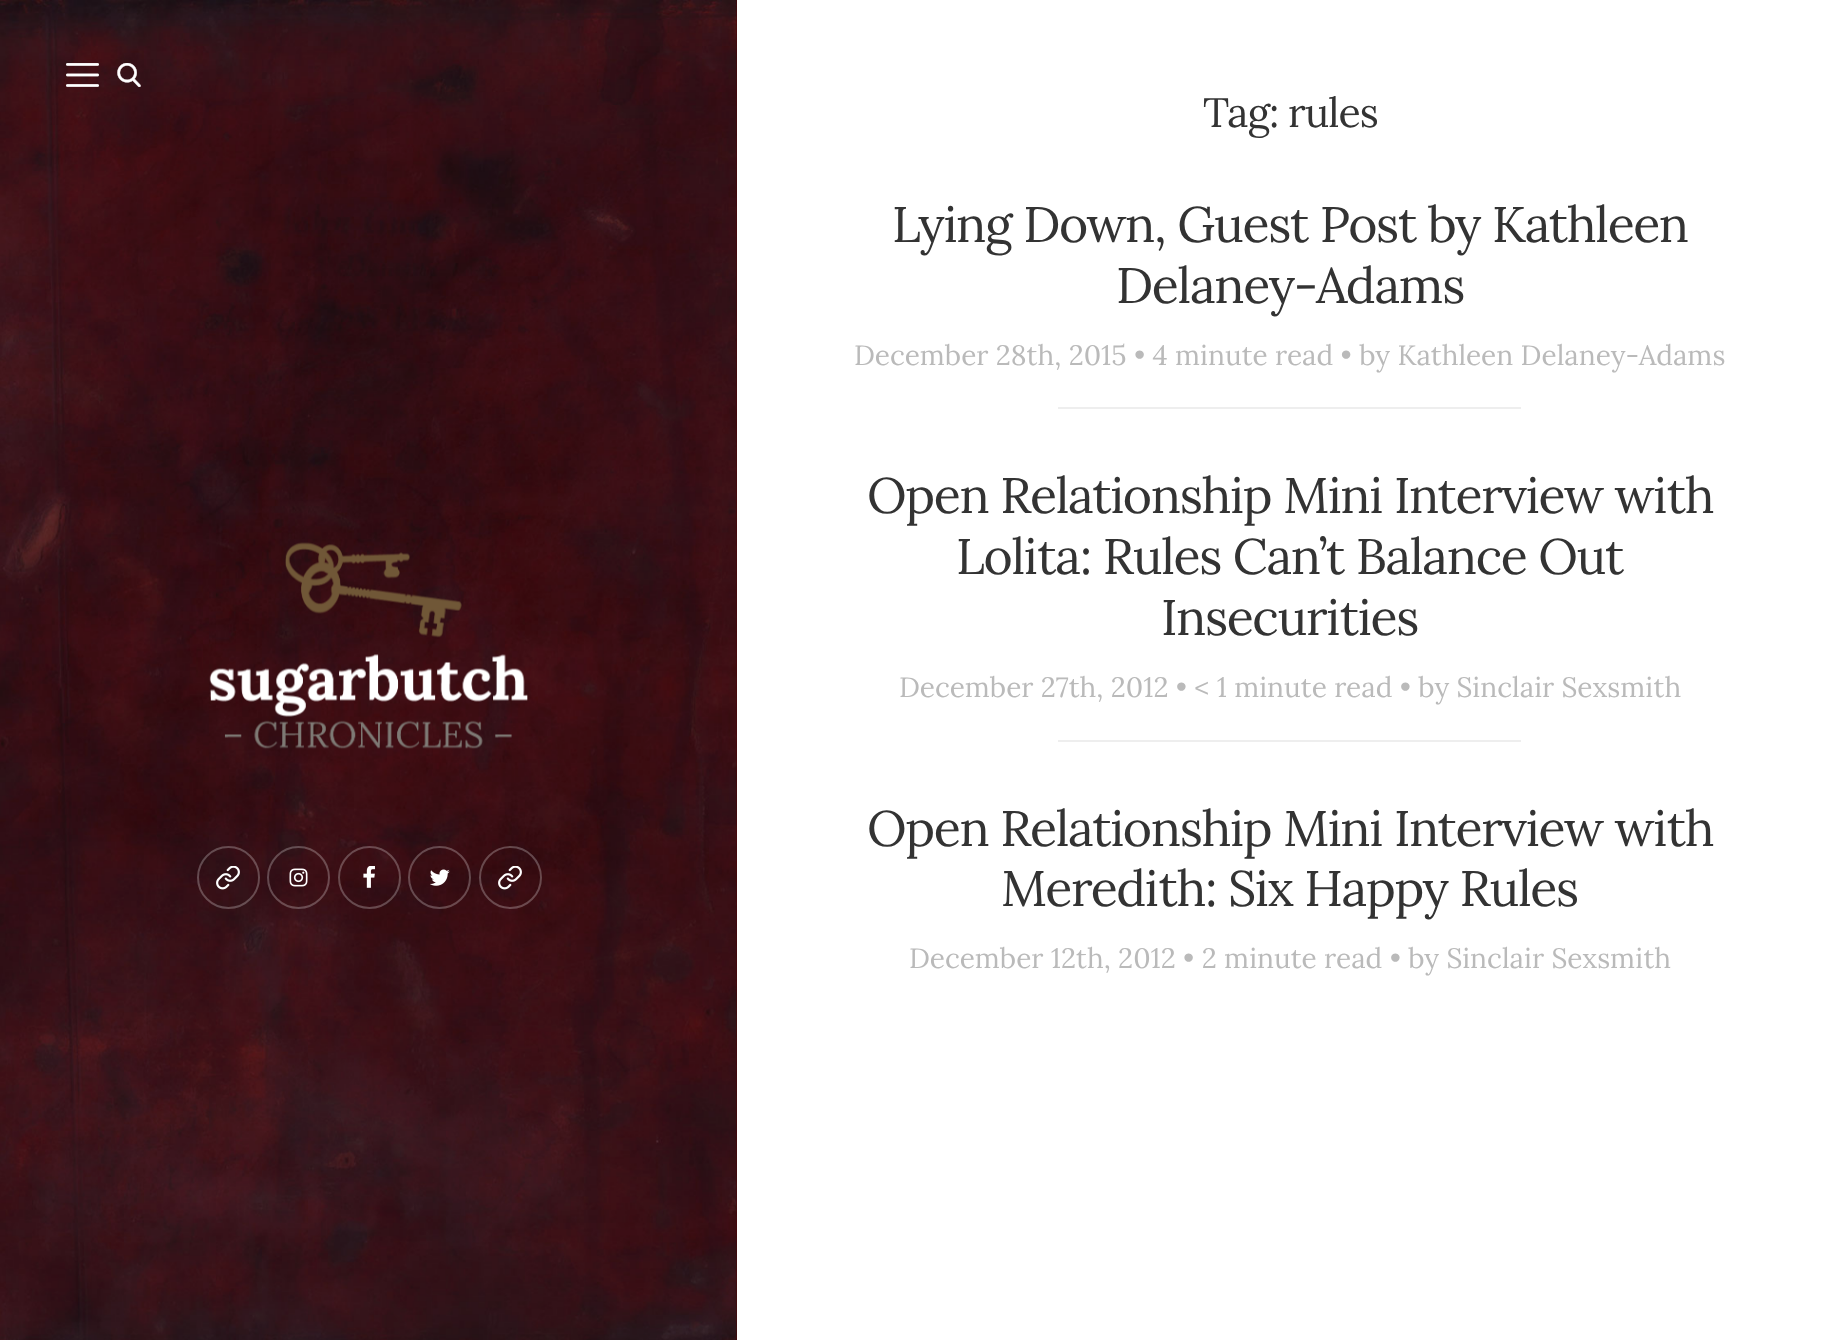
<?xml version="1.0" encoding="UTF-8"?>
<svg xmlns="http://www.w3.org/2000/svg" width="1841" height="1340">
    <rect width="100%" height="100%" fill="#FFFFFF"/>
    <rect x="736" y="0" width="1" height="1340" fill="#550000"/>
    <image x="0" y="0" width="737" height="1340" href="img_01.png"/>
    <image x="66" y="63" width="33" height="24" href="img_02.png"/>
    <image x="117" y="63" width="24" height="24" href="img_03.png"/>
    <image x="209" y="542" width="319" height="207" href="img_04.png"/>
    <circle cx="228.5" cy="877.5" r="30.5" fill="none" stroke="#FFFFFF" stroke-opacity="0.25" stroke-width="2"/>
    <image x="216" y="866" width="24" height="24" href="img_05.png"/>
    <circle cx="298.5" cy="877.5" r="30.5" fill="none" stroke="#FFFFFF" stroke-opacity="0.25" stroke-width="2"/>
    <image x="289" y="868" width="19" height="19" href="img_06.png"/>
    <circle cx="369.5" cy="877.5" r="30.5" fill="none" stroke="#FFFFFF" stroke-opacity="0.25" stroke-width="2"/>
    <image x="363" y="866" width="12" height="22" href="img_07.png"/>
    <circle cx="439.5" cy="877.5" r="30.5" fill="none" stroke="#FFFFFF" stroke-opacity="0.25" stroke-width="2"/>
    <image x="430" y="869" width="20" height="17" href="img_08.png"/>
    <circle cx="510.5" cy="877.5" r="30.5" fill="none" stroke="#FFFFFF" stroke-opacity="0.25" stroke-width="2"/>
    <image x="498" y="866" width="24" height="24" href="img_09.png"/>
    <text x="1203" y="127" font-family="Lora" font-size="41" letter-spacing="-1" fill="#333333">Tag: rules</text>
    <text x="892" y="242" font-family="Lora" font-size="49.9" letter-spacing="-1.3" fill="#333333">Lying Down, Guest Post by Kathleen</text>
    <text x="1116" y="303" font-family="Lora" font-size="49.9" letter-spacing="-1.3" fill="#333333">Delaney-Adams</text>
    <text x="854" y="365" font-family="Lora" font-size="28" fill="#BABABA">December 28th, 2015 • 4 minute read • by Kathleen Delaney-Adams</text>
    <rect x="1058" y="407" width="463" height="2" fill="#EEEEEE"/>
    <text x="867" y="513" font-family="Lora" font-size="49.9" letter-spacing="-1.3" fill="#333333">Open Relationship Mini Interview with</text>
    <text x="956" y="574" font-family="Lora" font-size="49.9" letter-spacing="-1.3" fill="#333333">Lolita: Rules Can’t Balance Out</text>
    <text x="1161" y="635" font-family="Lora" font-size="49.9" letter-spacing="-1.3" fill="#333333">Insecurities</text>
    <text x="899" y="697" font-family="Lora" font-size="28" fill="#BABABA">December 27th, 2012 • &lt; 1 minute read • by Sinclair Sexsmith</text>
    <rect x="1058" y="740" width="463" height="2" fill="#EEEEEE"/>
    <text x="867" y="846" font-family="Lora" font-size="49.9" letter-spacing="-1.3" fill="#333333">Open Relationship Mini Interview with</text>
    <text x="1001" y="906" font-family="Lora" font-size="49.9" letter-spacing="-1.3" fill="#333333">Meredith: Six Happy Rules</text>
    <text x="909" y="968" font-family="Lora" font-size="28" fill="#BABABA">December 12th, 2012 • 2 minute read • by Sinclair Sexsmith</text>
</svg>
